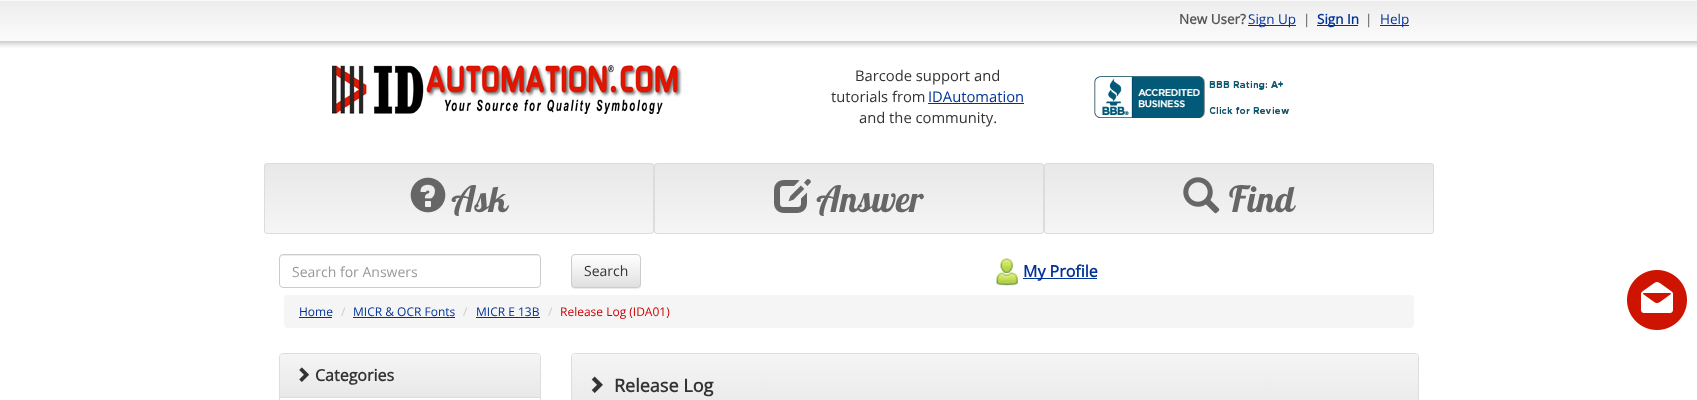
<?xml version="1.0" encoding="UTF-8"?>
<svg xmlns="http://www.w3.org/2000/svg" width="1697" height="400">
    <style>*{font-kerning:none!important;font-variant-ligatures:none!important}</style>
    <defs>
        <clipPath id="clip1"><rect x="264" y="163" width="390" height="71" rx="3"/></clipPath>
        <linearGradient id="g1" gradientUnits="userSpaceOnUse" x1="459" y1="164" x2="459" y2="233"><stop offset="0" stop-color="#E8E8E8"/><stop offset="1" stop-color="#F5F5F5"/></linearGradient>
        <clipPath id="clip2"><rect x="654" y="163" width="390" height="71" rx="3"/></clipPath>
        <linearGradient id="g2" gradientUnits="userSpaceOnUse" x1="849" y1="164" x2="849" y2="233"><stop offset="0" stop-color="#E8E8E8"/><stop offset="1" stop-color="#F5F5F5"/></linearGradient>
        <clipPath id="clip3"><rect x="1044" y="163" width="390" height="71" rx="3"/></clipPath>
        <linearGradient id="g3" gradientUnits="userSpaceOnUse" x1="1239" y1="164" x2="1239" y2="233"><stop offset="0" stop-color="#E8E8E8"/><stop offset="1" stop-color="#F5F5F5"/></linearGradient>
        <filter id="blur1" x="-50%" y="-200%" width="200%" height="500%"><feGaussianBlur stdDeviation="0.5"/></filter>
        <clipPath id="clip4"><rect x="571" y="254" width="70" height="34" rx="4"/></clipPath>
        <linearGradient id="g4" gradientUnits="userSpaceOnUse" x1="606" y1="255" x2="606" y2="287"><stop offset="0" stop-color="#FFFFFF"/><stop offset="1" stop-color="#E0E0E0"/></linearGradient>
        <linearGradient id="g5" gradientUnits="userSpaceOnUse" x1="410" y1="354" x2="410" y2="397"><stop offset="0" stop-color="#F5F5F5"/><stop offset="1" stop-color="#E8E8E8"/></linearGradient>
        <linearGradient id="g6" gradientUnits="userSpaceOnUse" x1="995" y1="354" x2="995" y2="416"><stop offset="0" stop-color="#F5F5F5"/><stop offset="1" stop-color="#E8E8E8"/></linearGradient>
    </defs>
    <rect width="100%" height="100%" fill="#FFFFFF"/>
    <image x="0" y="0" width="1697" height="48" href="img_01.png"/>
    <rect x="264" y="0" width="1170" height="48" fill="#FFFFFF"/>
    <image x="264" y="0" width="1170" height="48" href="img_02.png"/>
    <text x="1179" y="24" font-family="Open Sans" font-size="13.5" font-weight="700" fill="#555555">New User?</text>
    <rect x="1248" y="25" width="48" height="1" fill="#003399"/>
    <text x="1248" y="24" font-family="Open Sans" font-size="13.5" fill="#003399">Sign Up</text>
    <text x="1303" y="24" font-family="Open Sans" font-size="13.5" fill="#555555">|</text>
    <rect x="1317" y="25" width="41" height="1" fill="#003399"/>
    <text x="1317" y="24" font-family="Open Sans" font-size="13.5" font-weight="700" fill="#003399">Sign In</text>
    <text x="1365" y="24" font-family="Open Sans" font-size="13.5" fill="#555555">|</text>
    <rect x="1380" y="25" width="29" height="1" fill="#003399"/>
    <text x="1380" y="24" font-family="Open Sans" font-size="13.5" fill="#003399">Help</text>
    <image x="332" y="65" width="350" height="49" href="img_03.png"/>
    <text x="855" y="81" font-family="Open Sans" font-size="14.75" fill="#333333">Barcode support and</text>
    <text x="831" y="102" font-family="Open Sans" font-size="14.75" fill="#333333">tutorials from</text>
    <text x="928" y="102" font-family="Open Sans" font-size="14.75" fill="#003399">IDAutomation</text>
    <rect x="928" y="103" width="96" height="1" fill="#003399"/>
    <text x="859" y="123" font-family="Open Sans" font-size="14.75" fill="#333333">and the community.</text>
    <image x="1094" y="76" width="195" height="42" href="img_04.png"/>
    <image x="1627" y="270" width="60" height="60" href="img_05.png"/>
    <g clip-path="url(#clip1)">
        <rect x="264" y="164" width="390" height="69" fill="url(#g1)"/>
    </g>
    <rect x="264.5" y="163.5" width="389" height="70" rx="2.5" fill="none" stroke="#DCDCDC"/>
    <image x="410" y="177" width="36" height="36" href="img_06.png"/>
    <text x="453" y="212" font-family="Lobster Two" font-size="36" font-weight="700" font-style="italic" fill="#666666">Ask</text>
    <g clip-path="url(#clip2)">
        <rect x="654" y="164" width="390" height="69" fill="url(#g2)"/>
    </g>
    <rect x="654.5" y="163.5" width="389" height="70" rx="2.5" fill="none" stroke="#DCDCDC"/>
    <image x="774" y="179" width="37" height="34" href="img_07.png"/>
    <text x="818" y="212" font-family="Lobster Two" font-size="36" font-weight="700" font-style="italic" fill="#666666">Answer</text>
    <g clip-path="url(#clip3)">
        <rect x="1044" y="164" width="390" height="69" fill="url(#g3)"/>
    </g>
    <rect x="1044.5" y="163.5" width="389" height="70" rx="2.5" fill="none" stroke="#DCDCDC"/>
    <image x="1183" y="177" width="37" height="37" href="img_08.png"/>
    <text x="1227" y="212" font-family="Lobster Two" font-size="36" font-weight="700" font-style="italic" fill="#666666">Find</text>
    <path d="M 283 256 H 538 L 540 257 V 259 V 258 C 540 256 539 255 537 255 H 283 C 281 255 280 256 280 258 V 259 C 280 257 281 256 283 256 Z" fill="#ECECEC"/>
    <rect x="279.5" y="254.5" width="261" height="33" rx="3.5" fill="none" stroke="#CCCCCC"/>
    <text x="292" y="277" font-family="Open Sans" font-size="14" fill="#999999">Search for Answers</text>
    <rect x="571" y="255" width="70" height="34" rx="4" fill="#000000" fill-opacity="0.07" filter="url(#blur1)"/>
    <g clip-path="url(#clip4)">
        <rect x="571" y="255" width="70" height="32" fill="url(#g4)"/>
    </g>
    <rect x="571.5" y="254.5" width="69" height="33" rx="3.5" fill="none" stroke="#CCCCCC"/>
    <text x="584" y="276" font-family="Open Sans" font-size="14" fill="#333333">Search</text>
    <image x="996" y="258" width="22" height="28" href="img_09.png"/>
    <rect x="1023" y="278" width="74" height="1" fill="#003399"/>
    <text x="1023" y="277" font-family="Open Sans" font-size="16" font-weight="700" fill="#003399">My Profile</text>
    <rect x="284" y="295" width="1130" height="33" rx="4" fill="#F5F5F5"/>
    <text x="299" y="316" font-family="Open Sans" font-size="12" fill="#003399">Home</text>
    <rect x="299" y="317" width="33" height="1" fill="#003399"/>
    <text x="341" y="316" font-family="Open Sans" font-size="12" fill="#CCCCCC">/</text>
    <text x="353" y="316" font-family="Open Sans" font-size="12" fill="#003399">MICR &amp; OCR Fonts</text>
    <rect x="353" y="317" width="102" height="1" fill="#003399"/>
    <text x="463" y="316" font-family="Open Sans" font-size="12" fill="#CCCCCC">/</text>
    <text x="476" y="316" font-family="Open Sans" font-size="12" fill="#003399">MICR E 13B</text>
    <rect x="476" y="317" width="64" height="1" fill="#003399"/>
    <text x="548" y="316" font-family="Open Sans" font-size="12" fill="#CCCCCC">/</text>
    <text x="560" y="316" font-family="Open Sans" font-size="12" fill="#CC0004">Release Log (IDA01)</text>
    <rect x="279.5" y="353.5" width="261" height="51" rx="3.5" fill="none" stroke="#DDDDDD"/>
    <path d="M 283 354 H 537 C 538.5 354 540 355.5 540 357 V 397 H 280 V 357 C 280 355.5 281.5 354 283 354 Z" fill="url(#g5)"/>
    <rect x="280" y="397" width="260" height="1" fill="#DDDDDD"/>
    <image x="299" y="367" width="11" height="15" href="img_10.png"/>
    <text x="315" y="381" font-family="Open Sans" font-size="16" font-weight="700" fill="#333333">Categories</text>
    <rect x="571.5" y="353.5" width="847" height="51" rx="3.5" fill="none" stroke="#DDDDDD"/>
    <path d="M 575 354 H 1415 C 1416.5 354 1418 355.5 1418 357 V 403 H 572 V 357 C 572 355.5 573.5 354 575 354 Z" fill="url(#g6)"/>
    <image x="591" y="376" width="12" height="17" href="img_11.png"/>
    <text x="614" y="392" font-family="Open Sans" font-size="18" font-weight="700" fill="#333333">Release Log</text>
</svg>
